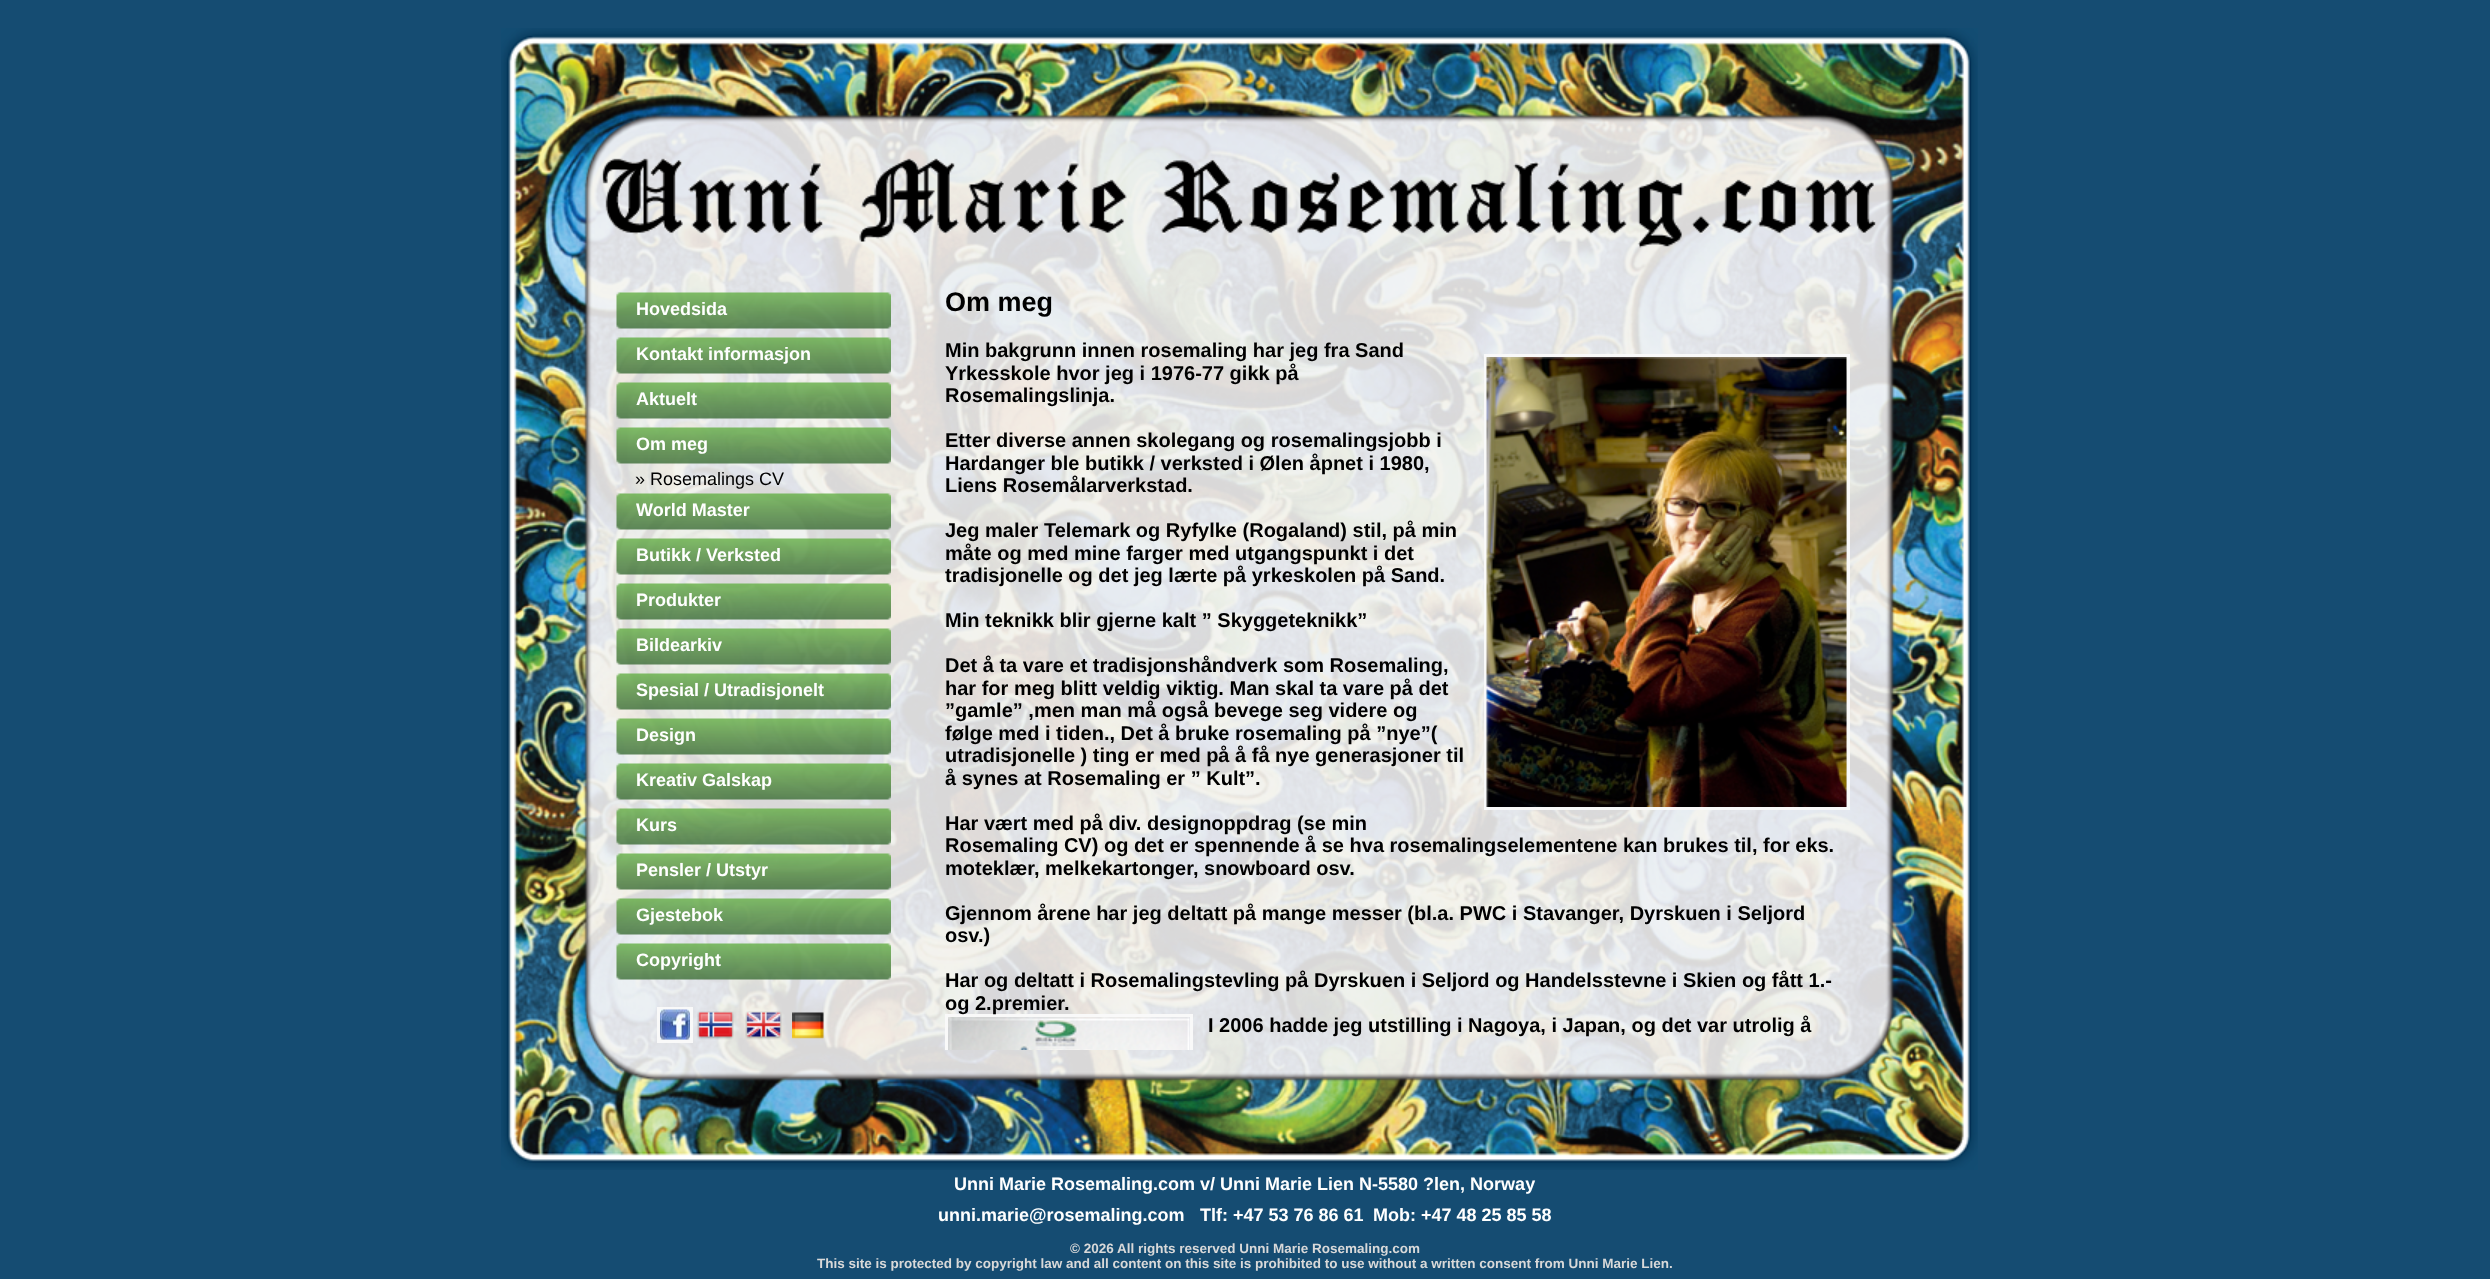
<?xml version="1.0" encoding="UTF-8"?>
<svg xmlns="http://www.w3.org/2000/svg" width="2490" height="1279">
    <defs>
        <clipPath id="clip1"><rect x="884" y="285" width="997" height="765"/></clipPath>
    </defs>
    <rect width="100%" height="100%" fill="#154C72"/>
    <image x="501" y="28" width="1477" height="1142" href="img_01.png"/>
    <image x="602" y="158" width="1274" height="90" href="img_02.png"/>
    <image x="616" y="292" width="275" height="37" href="img_03.png"/>
    <text x="636" y="315" font-family="Liberation Sans" font-size="18" font-weight="700" fill="#FFFFFF">Hovedsida</text>
    <image x="616" y="337" width="275" height="37" href="img_04.png"/>
    <text x="636" y="360" font-family="Liberation Sans" font-size="18" font-weight="700" fill="#FFFFFF">Kontakt informasjon</text>
    <image x="616" y="382" width="275" height="37" href="img_05.png"/>
    <text x="636" y="405" font-family="Liberation Sans" font-size="18" font-weight="700" fill="#FFFFFF">Aktuelt</text>
    <image x="616" y="427" width="275" height="37" href="img_06.png"/>
    <text x="636" y="450" font-family="Liberation Sans" font-size="18" font-weight="700" fill="#FFFFFF">Om meg</text>
    <text x="635" y="485" font-family="Liberation Sans" font-size="18" fill="#000000">» Rosemalings CV</text>
    <image x="616" y="493" width="275" height="37" href="img_07.png"/>
    <text x="636" y="516" font-family="Liberation Sans" font-size="18" font-weight="700" fill="#FFFFFF">World Master</text>
    <image x="616" y="538" width="275" height="37" href="img_08.png"/>
    <text x="636" y="561" font-family="Liberation Sans" font-size="18" font-weight="700" fill="#FFFFFF">Butikk / Verksted</text>
    <image x="616" y="583" width="275" height="37" href="img_09.png"/>
    <text x="636" y="606" font-family="Liberation Sans" font-size="18" font-weight="700" fill="#FFFFFF">Produkter</text>
    <image x="616" y="628" width="275" height="37" href="img_10.png"/>
    <text x="636" y="651" font-family="Liberation Sans" font-size="18" font-weight="700" fill="#FFFFFF">Bildearkiv</text>
    <image x="616" y="673" width="275" height="37" href="img_11.png"/>
    <text x="636" y="696" font-family="Liberation Sans" font-size="18" font-weight="700" fill="#FFFFFF">Spesial / Utradisjonelt</text>
    <image x="616" y="718" width="275" height="37" href="img_12.png"/>
    <text x="636" y="741" font-family="Liberation Sans" font-size="18" font-weight="700" fill="#FFFFFF">Design</text>
    <image x="616" y="763" width="275" height="37" href="img_13.png"/>
    <text x="636" y="786" font-family="Liberation Sans" font-size="18" font-weight="700" fill="#FFFFFF">Kreativ Galskap</text>
    <image x="616" y="808" width="275" height="37" href="img_14.png"/>
    <text x="636" y="831" font-family="Liberation Sans" font-size="18" font-weight="700" fill="#FFFFFF">Kurs</text>
    <image x="616" y="853" width="275" height="37" href="img_15.png"/>
    <text x="636" y="876" font-family="Liberation Sans" font-size="18" font-weight="700" fill="#FFFFFF">Pensler / Utstyr</text>
    <image x="616" y="898" width="275" height="37" href="img_16.png"/>
    <text x="636" y="921" font-family="Liberation Sans" font-size="18" font-weight="700" fill="#FFFFFF">Gjestebok</text>
    <image x="616" y="943" width="275" height="37" href="img_17.png"/>
    <text x="636" y="966" font-family="Liberation Sans" font-size="18" font-weight="700" fill="#FFFFFF">Copyright</text>
    <rect x="658.5" y="1008.5" width="33" height="33" fill="none" stroke="#F9F9F9" stroke-width="3"/>
    <image x="660" y="1009" width="30" height="31" href="img_18.png"/>
    <image x="697" y="1011" width="37" height="29" href="img_19.png"/>
    <image x="745" y="1011" width="37" height="29" href="img_20.png"/>
    <image x="792" y="1012" width="32" height="27" href="img_21.png"/>
    <text x="945" y="311" font-family="Liberation Sans" font-size="27" font-weight="700" fill="#000000">Om meg</text>
    <text font-family="Liberation Sans" font-size="20" font-weight="700" fill="#000000">
        <tspan x="945" y="357">Min bakgrunn innen rosemaling har jeg fra Sand</tspan>
        <tspan x="945" y="380">Yrkesskole hvor jeg i 1976-77 gikk på</tspan>
    </text>
    <rect x="1485.5" y="355.5" width="363" height="453" fill="none" stroke="#F9F9F9" stroke-width="3"/>
    <image x="1486" y="357" width="361" height="450" href="img_22.png"/>
    <text x="945" y="402" font-family="Liberation Sans" font-size="20" font-weight="700" fill="#000000">Rosemalingslinja.</text>
    <text font-family="Liberation Sans" font-size="20" font-weight="700" fill="#000000">
        <tspan x="945" y="447">Etter diverse annen skolegang og rosemalingsjobb i</tspan>
        <tspan x="945" y="470">Hardanger ble butikk / verksted i Ølen åpnet i 1980,</tspan>
        <tspan x="945" y="492">Liens Rosemålarverkstad.</tspan>
    </text>
    <text font-family="Liberation Sans" font-size="20" font-weight="700" fill="#000000">
        <tspan x="945" y="537">Jeg maler Telemark og Ryfylke (Rogaland) stil, på min</tspan>
        <tspan x="945" y="560">måte og med mine farger med utgangspunkt i det</tspan>
        <tspan x="945" y="582">tradisjonelle og det jeg lærte på yrkeskolen på Sand.</tspan>
    </text>
    <text x="945" y="627" font-family="Liberation Sans" font-size="20" font-weight="700" fill="#000000">Min teknikk blir gjerne kalt ” Skyggeteknikk”</text>
    <text font-family="Liberation Sans" font-size="20" font-weight="700" fill="#000000">
        <tspan x="945" y="672">Det å ta vare et tradisjonshåndverk som Rosemaling,</tspan>
        <tspan x="945" y="695">har for meg blitt veldig viktig. Man skal ta vare på det</tspan>
        <tspan x="945" y="717">”gamle” ,men man må også bevege seg videre og</tspan>
        <tspan x="945" y="740">følge med i tiden., Det å bruke rosemaling på ”nye”(</tspan>
        <tspan x="945" y="762">utradisjonelle ) ting er med på å få nye generasjoner til</tspan>
        <tspan x="945" y="785">å synes at Rosemaling er ” Kult”.</tspan>
    </text>
    <text font-family="Liberation Sans" font-size="20" font-weight="700" fill="#000000">
        <tspan x="945" y="830">Har vært med på div. designoppdrag (se min</tspan>
        <tspan x="945" y="852">Rosemaling CV) og det er spennende å se hva rosemalingselementene kan brukes til, for eks.</tspan>
        <tspan x="945" y="875">moteklær, melkekartonger, snowboard osv.</tspan>
    </text>
    <text font-family="Liberation Sans" font-size="20" font-weight="700" fill="#000000">
        <tspan x="945" y="920">Gjennom årene har jeg deltatt på mange messer (bl.a. PWC i Stavanger, Dyrskuen i Seljord</tspan>
        <tspan x="945" y="942">osv.)</tspan>
    </text>
    <text x="945" y="987" font-family="Liberation Sans" font-size="20" font-weight="700" fill="#000000">Har og deltatt i Rosemalingstevling på Dyrskuen i Seljord og Handelsstevne i Skien og fått 1.-</text>
    <text x="954" y="1190" font-family="Liberation Sans" font-size="18" font-weight="700" fill="#FFFFFF">Unni Marie Rosemaling.com v/ Unni Marie Lien N-5580 ?len, Norway</text>
    <text x="938" y="1221" font-family="Liberation Sans" font-size="18" font-weight="700" fill="#FFFFFF">unni.marie@rosemaling.com</text>
    <text x="1070" y="1253" font-family="Liberation Sans" font-size="13.5" font-weight="700" fill="#D9D9D9">© 2026 All rights reserved Unni Marie Rosemaling.com</text>
    <text x="817" y="1268" font-family="Liberation Sans" font-size="13.5" font-weight="700" fill="#D9D9D9">This site is protected by copyright law and all content on this site is prohibited to use without a written consent from Unni Marie Lien.</text>
    <g clip-path="url(#clip1)">
        <rect x="946.5" y="1015.5" width="245" height="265" fill="none" stroke="#F9F9F9" stroke-width="3"/>
    </g>
    <text x="945" y="1010" font-family="Liberation Sans" font-size="20" font-weight="700" fill="#000000">og 2.premier.</text>
    <image x="948" y="1017" width="242" height="33" href="img_23.png"/>
    <text x="1208" y="1032" font-family="Liberation Sans" font-size="20" font-weight="700" fill="#000000">I 2006 hadde jeg utstilling i Nagoya, i Japan, og det var utrolig å</text>
    <text x="1200" y="1221" font-family="Liberation Sans" font-size="18" font-weight="700" fill="#FFFFFF">Tlf: +47 53 76 86 61</text>
    <text x="1373" y="1221" font-family="Liberation Sans" font-size="18" font-weight="700" fill="#FFFFFF">Mob: +47 48 25 85 58</text>
</svg>
